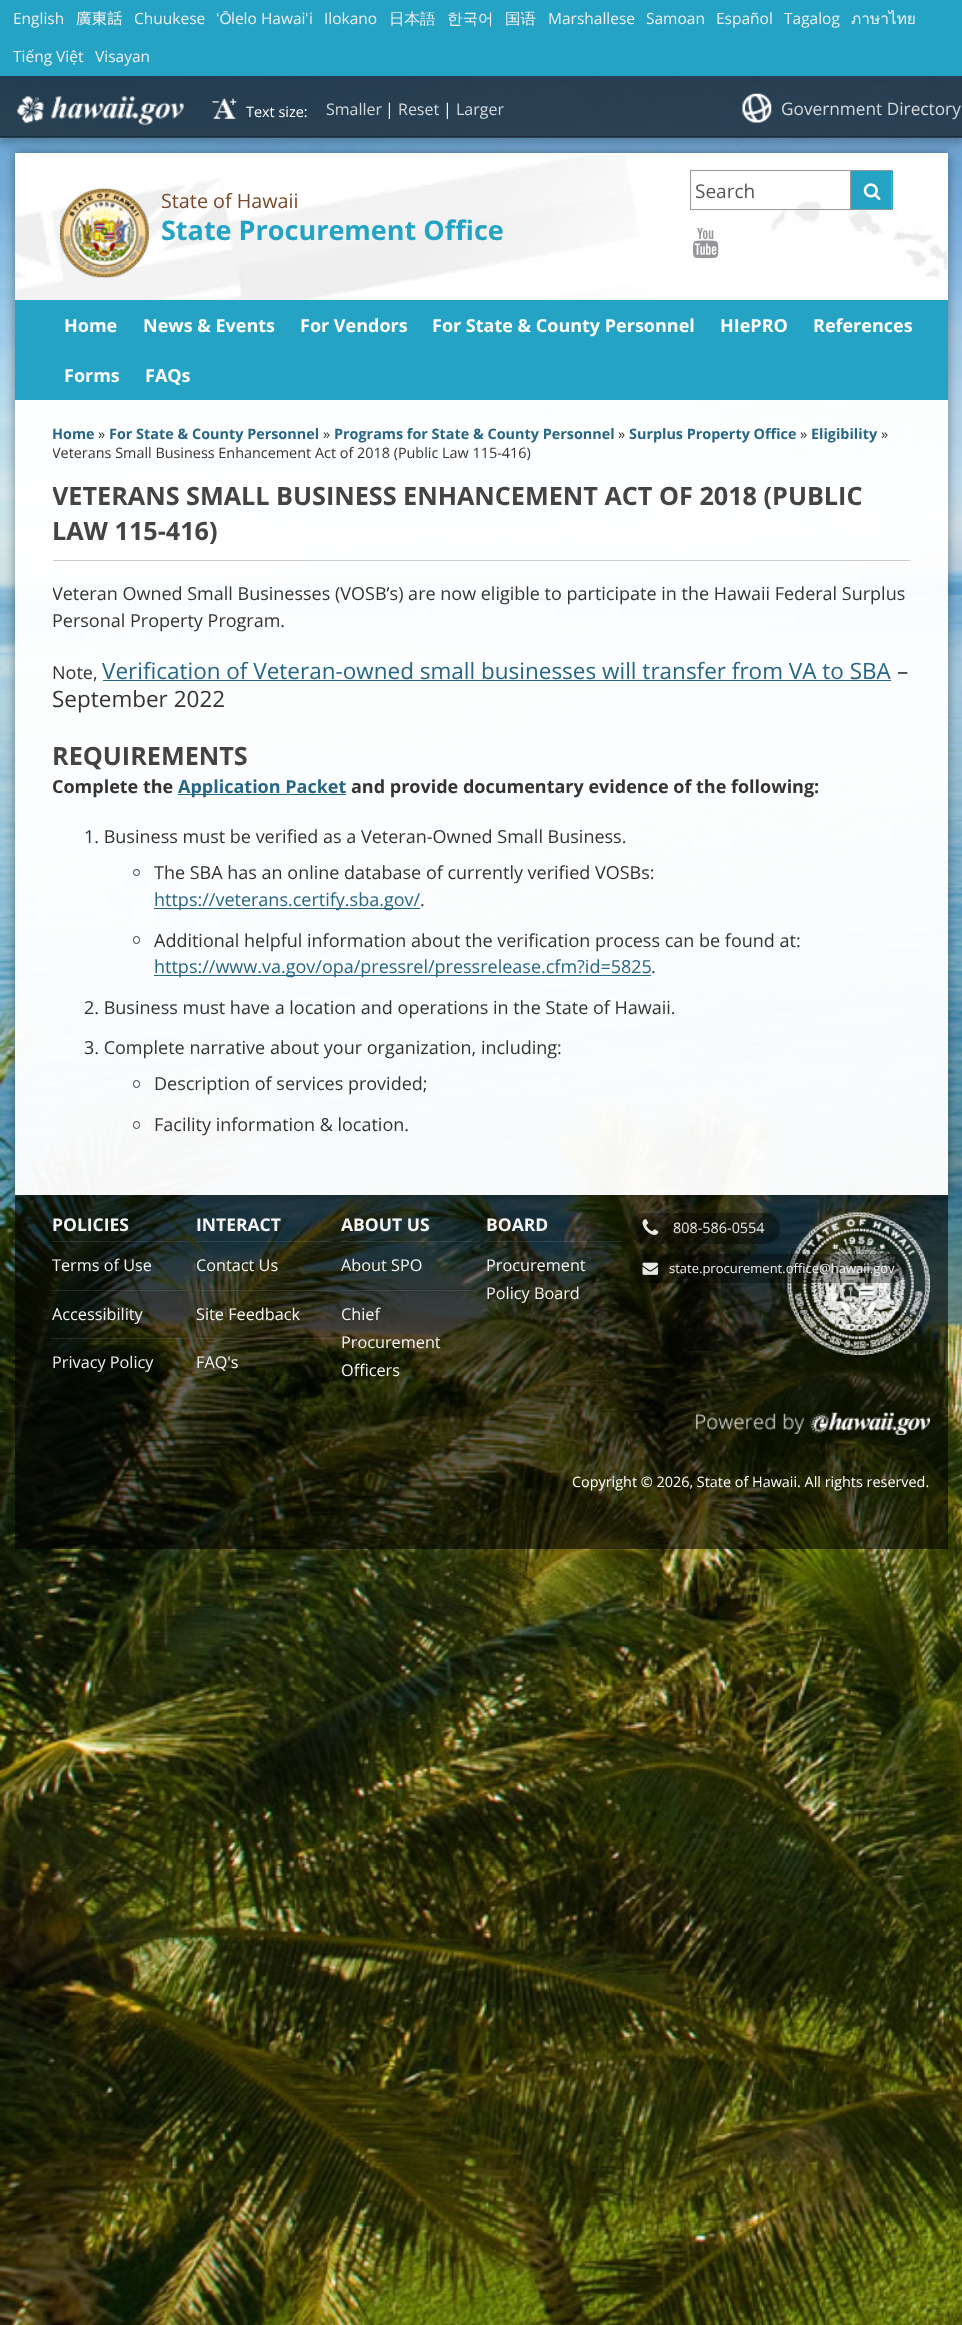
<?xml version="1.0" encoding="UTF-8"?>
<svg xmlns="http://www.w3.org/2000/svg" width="962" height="2325">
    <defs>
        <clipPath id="clip1"><path d="M 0 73 H 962 V 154 H 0 Z M 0 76 H 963 V 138 H 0 Z" clip-rule="evenodd"/></clipPath>
        <filter id="blur1" x="-50%" y="-200%" width="200%" height="500%"><feGaussianBlur stdDeviation="3"/></filter>
        <clipPath id="clip2"><path d="M 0 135 H 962 V 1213 H 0 Z M 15 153 H 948 V 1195 H 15 Z" clip-rule="evenodd"/></clipPath>
        <filter id="blur2" x="-50%" y="-200%" width="200%" height="500%"><feGaussianBlur stdDeviation="5.5"/></filter>
        <clipPath id="clip3"><rect x="53" y="425" width="857" height="726"/></clipPath>
    </defs>
    <rect width="100%" height="100%" fill="#FFFFFF"/>
    <rect x="0" y="0" width="962" height="76" fill="#25A3C4"/>
    <text x="13" y="24" font-family="Open Sans" font-size="15.5" fill="#EEEEEE">English</text>
    <text x="76" y="24" font-family="Chiron Hei HK" font-size="15.5" fill="#EEEEEE">廣東話</text>
    <text x="134" y="24" font-family="Open Sans" font-size="15.5" fill="#EEEEEE">Chuukese</text>
    <text x="216" y="24" font-family="Liberation Sans" font-size="15.5" fill="#EEEEEE">ʻŌ</text>
    <text x="231" y="24" font-family="Open Sans" font-size="15.5" fill="#EEEEEE">lelo Hawai</text>
    <text x="305" y="24" font-family="Liberation Sans" font-size="15.5" fill="#EEEEEE">ʻ</text>
    <text x="309" y="24" font-family="Open Sans" font-size="15.5" fill="#EEEEEE">i</text>
    <text x="324" y="24" font-family="Open Sans" font-size="15.5" fill="#EEEEEE">Ilokano</text>
    <text x="389" y="24" font-family="WenQuanYi Zen Hei" font-size="15.5" font-weight="500" fill="#EEEEEE">日本語</text>
    <text x="447" y="24" font-family="WenQuanYi Zen Hei" font-size="15.5" font-weight="500" fill="#EEEEEE">한국어</text>
    <text x="505" y="24" font-family="WenQuanYi Zen Hei" font-size="15.5" font-weight="500" fill="#EEEEEE">国语</text>
    <text x="548" y="24" font-family="Open Sans" font-size="15.5" fill="#EEEEEE">Marshallese</text>
    <text x="646" y="24" font-family="Open Sans" font-size="15.5" fill="#EEEEEE">Samoan</text>
    <text x="716" y="24" font-family="Open Sans" font-size="15.5" fill="#EEEEEE">Español</text>
    <text x="784" y="24" font-family="Open Sans" font-size="15.5" fill="#EEEEEE">Tagalog</text>
    <text x="851" y="24" font-family="Loma" font-size="15.5" fill="#EEEEEE">ภาษาไทย</text>
    <text x="13" y="62" font-family="Open Sans" font-size="15.5" fill="#EEEEEE">Tiếng Việt</text>
    <text x="95" y="62" font-family="Open Sans" font-size="15.5" fill="#EEEEEE">Visayan</text>
    <image x="0" y="76" width="962" height="2249" href="img_01.png"/>
    <g clip-path="url(#clip1)">
        <rect x="0" y="83" width="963" height="61" fill="#000000" fill-opacity="0.2" filter="url(#blur1)"/>
    </g>
    <g clip-path="url(#clip2)">
        <rect x="15" y="153" width="933" height="1042" fill="#000000" fill-opacity="0.4" filter="url(#blur2)"/>
    </g>
    <rect x="0" y="76" width="962" height="62" fill="#000000" fill-opacity="0.6"/>
    <rect x="0" y="136" width="962" height="1" fill="#000000" fill-opacity="0.3"/>
    <image x="17" y="96" width="167" height="30" href="img_02.png"/>
    <image x="212" y="98" width="25" height="21" href="img_03.png"/>
    <text x="246" y="117" font-family="Open Sans" font-size="14.4" fill="#FFFFFF">Text size:</text>
    <text x="326" y="115" font-family="Open Sans" font-size="16" fill="#D4D9DC">Smaller</text>
    <text x="385" y="115" font-family="Open Sans" font-size="16" fill="#FFFFFF">|</text>
    <text x="398" y="115" font-family="Open Sans" font-size="16" fill="#D4D9DC">Reset</text>
    <text x="443" y="115" font-family="Open Sans" font-size="16" fill="#FFFFFF">|</text>
    <text x="456" y="115" font-family="Open Sans" font-size="16" fill="#D4D9DC">Larger</text>
    <image x="742" y="93" width="30" height="30" href="img_04.png"/>
    <text x="781" y="115" font-family="Open Sans" font-size="17.25" fill="#D4D9DC">Government Directory</text>
    <rect x="15" y="400" width="933" height="795" fill="#FFFFFF" fill-opacity="0.96"/>
    <rect x="15" y="153" width="933" height="147" fill="#FFFFFF"/>
    <image x="15" y="155" width="933" height="145" href="img_05.png"/>
    <image x="60" y="188" width="89" height="90" href="img_06.png"/>
    <text x="161" y="208" font-family="Open Sans" font-size="19.75" fill="#79482A">State of Hawaii</text>
    <text x="161" y="240" font-family="Open Sans" font-size="27" font-weight="700" fill="#25A3C4">State Procurement Office</text>
    <rect x="690.5" y="170.5" width="160" height="39" fill="none" stroke="#999999"/>
    <text x="695" y="198" font-family="Open Sans" font-size="19" fill="#555555">Search</text>
    <rect x="851" y="171" width="42" height="38" fill="#25A3C4"/>
    <rect x="851" y="170" width="42" height="1" fill="#999999"/>
    <rect x="891" y="170" width="1" height="40" fill="#999999"/>
    <rect x="851" y="209" width="42" height="1" fill="#999999"/>
    <image x="863" y="183" width="18" height="18" href="img_07.png"/>
    <image x="693" y="228" width="26" height="31" href="img_08.png"/>
    <rect x="15" y="300" width="933" height="100" fill="#25A3C4"/>
    <text x="64" y="332" font-family="Open Sans" font-size="18" font-weight="700" fill="#FFFFFF">Home</text>
    <text x="143" y="332" font-family="Open Sans" font-size="18" font-weight="700" fill="#FFFFFF">News &amp; Events</text>
    <text x="300" y="332" font-family="Open Sans" font-size="18" font-weight="700" fill="#FFFFFF">For Vendors</text>
    <text x="432" y="332" font-family="Open Sans" font-size="18" font-weight="700" fill="#FFFFFF">For State &amp; County Personnel</text>
    <text x="720" y="332" font-family="Open Sans" font-size="18" font-weight="700" fill="#FFFFFF">HIePRO</text>
    <text x="813" y="332" font-family="Open Sans" font-size="18" font-weight="700" fill="#FFFFFF">References</text>
    <text x="64" y="382" font-family="Open Sans" font-size="18" font-weight="700" fill="#FFFFFF">Forms</text>
    <text x="145" y="382" font-family="Open Sans" font-size="18" font-weight="700" fill="#FFFFFF">FAQs</text>
    <text x="52" y="439" font-family="Open Sans" font-size="14.4" font-weight="700" fill="#276684">Home</text>
    <text x="98" y="439" font-family="Open Sans" font-size="14.4" fill="#333333">»</text>
    <text x="109" y="439" font-family="Open Sans" font-size="14.4" font-weight="700" fill="#276684">For State &amp; County Personnel</text>
    <text x="323" y="439" font-family="Open Sans" font-size="14.4" fill="#333333">»</text>
    <text x="334" y="439" font-family="Open Sans" font-size="14.4" font-weight="700" fill="#276684">Programs for State &amp; County Personnel</text>
    <text x="618" y="439" font-family="Open Sans" font-size="14.4" fill="#333333">»</text>
    <text x="629" y="439" font-family="Open Sans" font-size="14.4" font-weight="700" fill="#276684">Surplus Property Office</text>
    <text x="800" y="439" font-family="Open Sans" font-size="14.4" fill="#333333">»</text>
    <text x="811" y="439" font-family="Open Sans" font-size="14.4" font-weight="700" fill="#276684">Eligibility</text>
    <text x="881" y="439" font-family="Open Sans" font-size="14.4" fill="#333333">»</text>
    <g clip-path="url(#clip3)">
        <text x="52" y="458" font-family="Open Sans" font-size="14.4" fill="#333333">Veterans Small Business Enhancement Act of 2018 (Public Law 115-416)</text>
    </g>
    <rect x="53" y="560" width="857" height="1" fill="#CCCCCC"/>
    <g clip-path="url(#clip3)">
        <text x="52" y="505" font-family="Open Sans" font-size="25.2" font-weight="700" fill="#444444">VETERANS SMALL BUSINESS ENHANCEMENT ACT OF 2018 (PUBLIC</text>
    </g>
    <text x="52" y="540" font-family="Open Sans" font-size="25.2" font-weight="700" fill="#444444">LAW 115-416)</text>
    <g clip-path="url(#clip3)">
        <text x="52" y="600" font-family="Open Sans" font-size="18" fill="#333333">Veteran Owned Small Businesses (VOSB’s) are now eligible to participate in the Hawaii Federal Surplus</text>
    </g>
    <text x="52" y="627" font-family="Open Sans" font-size="18" fill="#333333">Personal Property Program.</text>
    <text x="52" y="679" font-family="Open Sans" font-size="18" fill="#333333">Note,</text>
    <text x="102" y="679" font-family="Open Sans" font-size="22.5" fill="#276684">Verification of Veteran-owned small businesses will transfer from VA to SBA</text>
    <rect x="103" y="680" width="788" height="1" fill="#276684"/>
    <text x="897" y="679" font-family="Open Sans" font-size="22.5" fill="#333333">–</text>
    <text x="52" y="707" font-family="Open Sans" font-size="22.5" fill="#333333">September 2022</text>
    <text x="52" y="765" font-family="Open Sans" font-size="25.2" font-weight="700" fill="#444444">REQUIREMENTS</text>
    <text x="52" y="793" font-family="Open Sans" font-size="18" font-weight="700" fill="#333333">Complete the</text>
    <rect x="178" y="794" width="168" height="1" fill="#276684"/>
    <text x="178" y="793" font-family="Open Sans" font-size="18" font-weight="700" fill="#276684">Application Packet</text>
    <text x="351" y="793" font-family="Open Sans" font-size="18" font-weight="700" fill="#333333">and provide documentary evidence of the following:</text>
    <text x="84" y="843" font-family="Open Sans" font-size="18" fill="#333333">1. Business must be verified as a Veteran-Owned Small Business.</text>
    <circle cx="136.5" cy="872.5" r="3" fill="none" stroke="#333333"/>
    <text x="154" y="879" font-family="Open Sans" font-size="18" fill="#333333">The SBA has an online database of currently verified VOSBs:</text>
    <rect x="154" y="908" width="266" height="1" fill="#276684"/>
    <text x="154" y="906" font-family="Open Sans" font-size="18" fill="#276684">https://veterans.certify.sba.gov/</text>
    <text x="420" y="906" font-family="Open Sans" font-size="18" fill="#333333">.</text>
    <rect x="133.5" y="936.5" width="6" height="7" rx="3" fill="none" stroke="#333333"/>
    <text x="154" y="947" font-family="Open Sans" font-size="18" fill="#333333">Additional helpful information about the verification process can be found at:</text>
    <rect x="154" y="975" width="497" height="1" fill="#276684"/>
    <text x="154" y="973" font-family="Open Sans" font-size="18" fill="#276684">https://www.va.gov/opa/pressrel/pressrelease.cfm?id=5825</text>
    <text x="651" y="973" font-family="Open Sans" font-size="18" fill="#333333">.</text>
    <text x="84" y="1014" font-family="Open Sans" font-size="18" fill="#333333">2. Business must have a location and operations in the State of Hawaii.</text>
    <text x="84" y="1054" font-family="Open Sans" font-size="18" fill="#333333">3. Complete narrative about your organization, including:</text>
    <rect x="133.5" y="1080.5" width="6" height="7" rx="3" fill="none" stroke="#333333"/>
    <text x="154" y="1090" font-family="Open Sans" font-size="18" fill="#333333">Description of services provided;</text>
    <rect x="133.5" y="1121.5" width="6" height="7" rx="3" fill="none" stroke="#333333"/>
    <text x="154" y="1131" font-family="Open Sans" font-size="18" fill="#333333">Facility information &amp; location.</text>
    <rect x="15" y="1195" width="933" height="354" fill="#000000" fill-opacity="0.6"/>
    <image x="787" y="1212" width="143" height="143" href="img_09.png"/>
    <text x="52" y="1231" font-family="Open Sans" font-size="17.5" font-weight="700" fill="#F3F4F3">POLICIES</text>
    <rect x="51" y="1241" width="137" height="1" fill="#FFFFFF" fill-opacity="0.1"/>
    <rect x="51" y="1289" width="137" height="1" fill="#000000" fill-opacity="0.1"/>
    <text x="52" y="1271" font-family="Open Sans" font-size="16.25" fill="#F3F4F3">Terms of Use</text>
    <rect x="51" y="1290" width="137" height="1" fill="#FFFFFF" fill-opacity="0.1"/>
    <rect x="87" y="1336" width="101" height="1" fill="#000000" fill-opacity="0.1"/>
    <text x="52" y="1320" font-family="Open Sans" font-size="16.25" fill="#F3F4F3">Accessibility</text>
    <rect x="51" y="1338" width="137" height="1" fill="#FFFFFF" fill-opacity="0.1"/>
    <rect x="158" y="1385" width="30" height="1" fill="#000000" fill-opacity="0.1"/>
    <text x="52" y="1368" font-family="Open Sans" font-size="16.25" fill="#EEEEEE">Privacy Policy</text>
    <text x="196" y="1231" font-family="Open Sans" font-size="17.5" font-weight="700" fill="#F3F4F3">INTERACT</text>
    <rect x="196" y="1241" width="137" height="1" fill="#FFFFFF" fill-opacity="0.1"/>
    <rect x="196" y="1289" width="137" height="1" fill="#000000" fill-opacity="0.1"/>
    <text x="196" y="1271" font-family="Open Sans" font-size="16.25" fill="#F3F4F3">Contact Us</text>
    <rect x="196" y="1290" width="137" height="1" fill="#FFFFFF" fill-opacity="0.1"/>
    <rect x="196" y="1336" width="137" height="1" fill="#000000" fill-opacity="0.1"/>
    <text x="196" y="1320" font-family="Open Sans" font-size="16.25" fill="#F3F4F3">Site Feedback</text>
    <rect x="196" y="1338" width="137" height="1" fill="#FFFFFF" fill-opacity="0.1"/>
    <rect x="196" y="1385" width="137" height="1" fill="#000000" fill-opacity="0.1"/>
    <text x="196" y="1368" font-family="Open Sans" font-size="16.25" fill="#F3F4F3">FAQ's</text>
    <text x="341" y="1231" font-family="Open Sans" font-size="17.5" font-weight="700" fill="#F3F4F3">ABOUT US</text>
    <rect x="341" y="1241" width="135" height="1" fill="#FFFFFF" fill-opacity="0.1"/>
    <rect x="341" y="1289" width="135" height="1" fill="#000000" fill-opacity="0.1"/>
    <text x="341" y="1271" font-family="Open Sans" font-size="16.25" fill="#F3F4F3">About SPO</text>
    <rect x="341" y="1290" width="135" height="1" fill="#FFFFFF" fill-opacity="0.1"/>
    <rect x="341" y="1393" width="135" height="1" fill="#000000" fill-opacity="0.1"/>
    <text font-family="Open Sans" font-size="16.25" fill="#F3F4F3">
        <tspan x="341" y="1320">Chief</tspan>
        <tspan x="341" y="1348">Procurement</tspan>
        <tspan x="341" y="1376">Officers</tspan>
    </text>
    <text x="486" y="1231" font-family="Open Sans" font-size="17.5" font-weight="700" fill="#F3F4F3">BOARD</text>
    <rect x="486" y="1241" width="135" height="1" fill="#FFFFFF" fill-opacity="0.1"/>
    <rect x="486" y="1316" width="135" height="1" fill="#000000" fill-opacity="0.1"/>
    <text font-family="Open Sans" font-size="16.25" fill="#F3F4F3">
        <tspan x="486" y="1271">Procurement</tspan>
        <tspan x="486" y="1299">Policy Board</tspan>
    </text>
    <rect x="630" y="1213" width="150" height="31" rx="15" fill="#000000" fill-opacity="0.36"/>
    <image x="642" y="1219" width="17" height="16" href="img_10.png"/>
    <text x="673" y="1233" font-family="Open Sans" font-size="14.4" fill="#E8E8E7">808-586-0554</text>
    <rect x="630" y="1254" width="276" height="29" rx="13" fill="#000000" fill-opacity="0.36"/>
    <image x="642" y="1262" width="17" height="13" href="img_11.png"/>
    <text x="669" y="1273" font-family="Open Sans" font-size="13" fill="#EEEEEE">state.procurement.office@hawaii.gov</text>
    <image x="696" y="1412" width="234" height="23" href="img_12.png"/>
    <text x="572" y="1487" font-family="Open Sans" font-size="14.4" fill="#FFFFFF">Copyright © 2026, State of Hawaii. All rights reserved.</text>
</svg>
